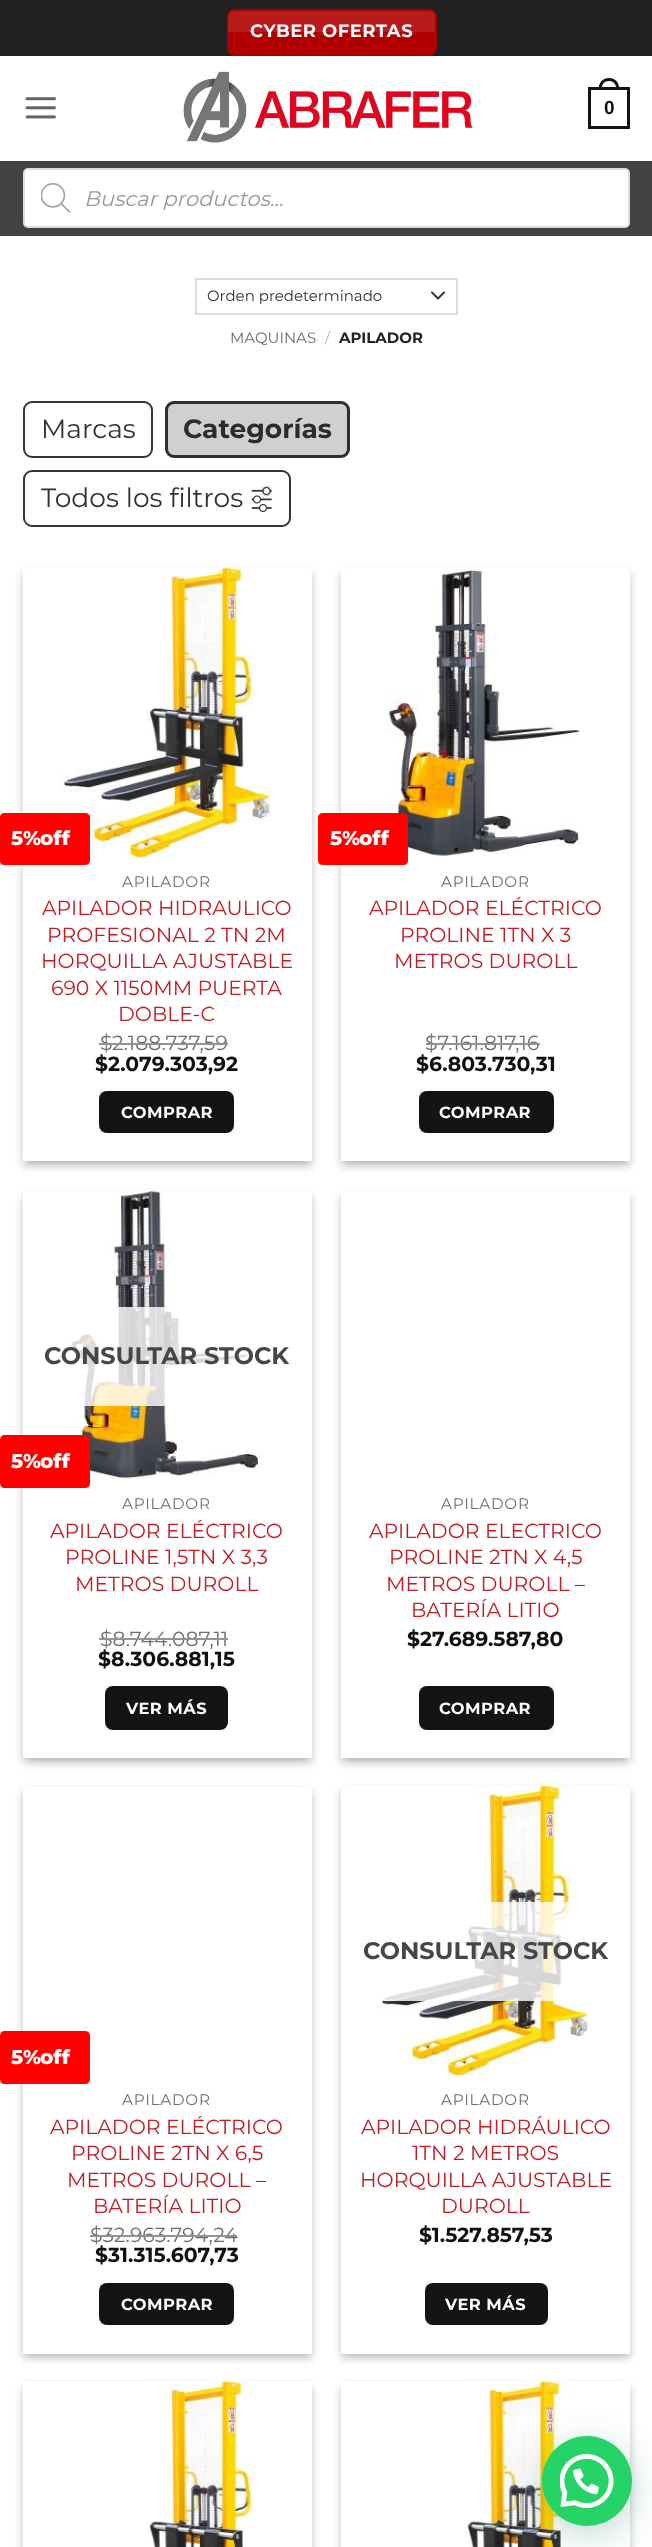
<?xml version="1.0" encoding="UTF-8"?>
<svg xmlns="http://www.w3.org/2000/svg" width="652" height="2547">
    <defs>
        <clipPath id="clip1"><path d="M 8 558 H 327 V 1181 H 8 Z M 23 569 H 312 V 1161 H 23 Z" clip-rule="evenodd"/></clipPath>
        <filter id="blur1" x="-50%" y="-200%" width="200%" height="500%"><feGaussianBlur stdDeviation="4.5"/></filter>
        <clipPath id="clip2"><rect x="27" y="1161" width="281" height="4"/></clipPath>
        <clipPath id="clip3"><path d="M 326 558 H 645 V 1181 H 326 Z M 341 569 H 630 V 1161 H 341 Z" clip-rule="evenodd"/></clipPath>
        <clipPath id="clip4"><rect x="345" y="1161" width="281" height="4"/></clipPath>
        <clipPath id="clip5"><path d="M 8 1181 H 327 V 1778 H 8 Z M 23 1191 H 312 V 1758 H 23 Z" clip-rule="evenodd"/></clipPath>
        <clipPath id="clip6"><rect x="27" y="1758" width="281" height="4"/></clipPath>
        <clipPath id="clip7"><path d="M 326 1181 H 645 V 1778 H 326 Z M 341 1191 H 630 V 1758 H 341 Z" clip-rule="evenodd"/></clipPath>
        <clipPath id="clip8"><rect x="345" y="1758" width="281" height="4"/></clipPath>
        <clipPath id="clip9"><path d="M 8 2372 H 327 V 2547 H 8 Z M 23 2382 H 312 V 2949 H 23 Z" clip-rule="evenodd"/></clipPath>
        <clipPath id="clip10"><path d="M 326 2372 H 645 V 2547 H 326 Z M 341 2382 H 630 V 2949 H 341 Z" clip-rule="evenodd"/></clipPath>
        <filter id="blur2" x="-50%" y="-200%" width="200%" height="500%"><feGaussianBlur stdDeviation="18"/></filter>
    </defs>
    <rect width="100%" height="100%" fill="#FFFFFF"/>
    <rect x="0" y="0" width="652" height="56" fill="#212121"/>
    <rect x="227" y="9" width="210" height="47" rx="8" fill="#B20000"/>
    <rect x="228" y="10" width="208" height="45" fill="none" stroke="#000000" stroke-opacity="0.05" stroke-width="2"/>
    <path d="M 234 11 H 429 C 432.5 11 435 13.5 435 17 V 32 H 228 V 17 C 228 13.5 230.5 11 234 11 Z" fill="#FFFFFF" fill-opacity="0.1"/>
    <text x="250" y="37" font-family="Montserrat" font-size="18" font-weight="700" letter-spacing="0.5" fill="#FFFFFF">CYBER OFERTAS</text>
    <image x="25" y="97" width="31" height="22" href="img_01.png"/>
    <image x="183" y="71" width="290" height="72" href="img_02.png"/>
    <rect x="589.5" y="88.5" width="39" height="39" fill="none" stroke="#141414" stroke-width="3"/>
    <path d="M 609 78 C 616 78 619.5 83.5 619.5 90 H 598.5 C 598.5 83.5 602 78 609 78 Z M 609 81 C 614.5 81 616.5 85.5 616.5 90 H 601.5 C 601.5 85.5 603.5 81 609 81 Z" fill="#141414" fill-rule="evenodd"/>
    <text x="604" y="114" font-family="Liberation Sans" font-size="19" font-weight="700" fill="#111111">0</text>
    <rect x="0" y="161" width="652" height="75" fill="#424242"/>
    <rect x="24" y="169" width="605" height="58" rx="4" fill="#FFFFFF" stroke="#DDDDDD" stroke-width="2"/>
    <image x="41" y="183" width="30" height="30" href="img_03.png"/>
    <text x="84" y="206" font-family="Montserrat" font-size="21" font-style="italic" fill="#999999">Buscar productos...</text>
    <path d="M 432 292.5 L 438 298.5 L 444 292.5" fill="none" stroke="#333333" stroke-width="2" stroke-linecap="round" stroke-linejoin="round"/>
    <rect x="196" y="279" width="261" height="35" fill="none" stroke="#DDDDDD" stroke-width="2"/>
    <text x="207" y="301" font-family="Montserrat" font-size="15" fill="#333333">Orden predeterminado</text>
    <text x="230" y="343" font-family="Montserrat" font-size="15" fill="#6E6E6E">MAQUINAS</text>
    <text x="325" y="343" font-family="Montserrat" font-size="15" fill="#B2B2B2">/</text>
    <text x="339" y="343" font-family="Montserrat" font-size="15" font-weight="700" fill="#222222">APILADOR</text>
    <rect x="24" y="402" width="128" height="55" rx="8" fill="none" stroke="#363636" stroke-width="2"/>
    <text x="41" y="438" font-family="Montserrat" font-size="26.5" fill="#333333">Marcas</text>
    <rect x="166.5" y="402.5" width="182" height="54" rx="7.5" fill="none" stroke="#363636" stroke-width="3"/>
    <text x="183" y="438" font-family="Montserrat" font-size="26.5" font-weight="700" fill="#333333">Categorías</text>
    <rect x="165" y="401" width="185" height="57" rx="9" fill="#141414" fill-opacity="0.2"/>
    <rect x="24" y="471" width="266" height="55" rx="8" fill="none" stroke="#363636" stroke-width="2"/>
    <text x="41" y="507" font-family="Montserrat" font-size="26.5" fill="#333333">Todos los filtros</text>
    <image x="251" y="485" width="21" height="27" href="img_04.png"/>
    <g clip-path="url(#clip1)">
        <rect x="23" y="573" width="289" height="593" fill="#000000" fill-opacity="0.23" filter="url(#blur1)"/>
    </g>
    <g clip-path="url(#clip2)">
        <rect x="29" y="579" width="277" height="581" fill="#000000" fill-opacity="0.16" filter="url(#blur1)"/>
    </g>
    <image x="28" y="568" width="279" height="290" href="img_05.png"/>
    <path d="M 85 813 H 4 C 2 813 0 815 0 817 V 861 C 0 863 2 865 4 865 H 85 C 88 865 90 863 90 861 V 817 C 90 815 88 813 85 813 Z" fill="#FF0000"/>
    <text x="11" y="845" font-family="Montserrat" font-size="20" font-weight="800" fill="#FFFFFF">5%</text>
    <text x="40" y="845" font-family="Montserrat" font-size="20" font-weight="800" fill="#FFFFFF">off</text>
    <text x="122" y="887" font-family="Montserrat" font-size="15.25" letter-spacing="0.75" fill="#6E6E6E">APILADOR</text>
    <text x="42" y="915" font-family="Montserrat" font-size="20.4" fill="#C01C24">APILADOR HIDRAULICO</text>
    <text x="47" y="942" font-family="Montserrat" font-size="20.4" fill="#C01C24">PROFESIONAL 2 TN 2M</text>
    <text x="41" y="968" font-family="Montserrat" font-size="20.4" fill="#C01C24">HORQUILLA AJUSTABLE</text>
    <text x="51" y="995" font-family="Montserrat" font-size="20.4" fill="#C01C24">690 X 1150MM PUERTA</text>
    <text x="118" y="1021" font-family="Montserrat" font-size="20.4" fill="#C01C24">DOBLE-C</text>
    <text x="100" y="1050" font-family="Montserrat" font-size="20.4" fill="#6E6E6E">$</text>
    <rect x="99" y="1043" width="14" height="2" fill="#929292"/>
    <text x="112" y="1050" font-family="Montserrat" font-size="20.4" fill="#6E6E6E">2.188.737,59</text>
    <rect x="113" y="1043" width="115" height="2" fill="#929292"/>
    <text x="95" y="1071" font-family="Montserrat" font-size="20.4" font-weight="700" fill="#111111">$2.079.303,92</text>
    <rect x="99" y="1091" width="135" height="42" rx="8" fill="#141414"/>
    <rect x="100" y="1092" width="133" height="40" fill="none" stroke="#000000" stroke-opacity="0.05" stroke-width="2"/>
    <text x="121" y="1118" font-family="Montserrat" font-size="16.25" font-weight="700" letter-spacing="0.5" fill="#FFFFFF">COMPRAR</text>
    <g clip-path="url(#clip3)">
        <rect x="341" y="573" width="289" height="593" fill="#000000" fill-opacity="0.23" filter="url(#blur1)"/>
    </g>
    <g clip-path="url(#clip4)">
        <rect x="347" y="579" width="277" height="581" fill="#000000" fill-opacity="0.16" filter="url(#blur1)"/>
    </g>
    <image x="346" y="568" width="279" height="289" href="img_06.png"/>
    <path d="M 404 813 H 323 C 320 813 318 815 318 817 V 861 C 318 863 320 865 323 865 H 404 C 406 865 408 863 408 861 V 817 C 408 815 406 813 404 813 Z" fill="#FF0000"/>
    <text x="330" y="845" font-family="Montserrat" font-size="20" font-weight="800" fill="#FFFFFF">5%</text>
    <text x="359" y="845" font-family="Montserrat" font-size="20" font-weight="800" fill="#FFFFFF">off</text>
    <text x="441" y="887" font-family="Montserrat" font-size="15.25" letter-spacing="0.75" fill="#6E6E6E">APILADOR</text>
    <text x="369" y="915" font-family="Montserrat" font-size="20.4" fill="#C01C24">APILADOR ELÉCTRICO</text>
    <text x="400" y="942" font-family="Montserrat" font-size="20.4" fill="#C01C24">PROLINE 1TN X 3</text>
    <text x="394" y="968" font-family="Montserrat" font-size="20.4" fill="#C01C24">METROS DUROLL</text>
    <text x="425" y="1050" font-family="Montserrat" font-size="20.4" fill="#6E6E6E">$7.161.817,16</text>
    <rect x="426" y="1043" width="114" height="2" fill="#929292"/>
    <text x="416" y="1071" font-family="Montserrat" font-size="20.4" font-weight="700" fill="#111111">$6.803.730,31</text>
    <rect x="419" y="1091" width="135" height="42" rx="8" fill="#141414"/>
    <rect x="420" y="1092" width="133" height="40" fill="none" stroke="#000000" stroke-opacity="0.05" stroke-width="2"/>
    <text x="439" y="1118" font-family="Montserrat" font-size="16.25" font-weight="700" letter-spacing="0.5" fill="#FFFFFF">COMPRAR</text>
    <g clip-path="url(#clip5)">
        <rect x="23" y="1196" width="289" height="567" fill="#000000" fill-opacity="0.23" filter="url(#blur1)"/>
    </g>
    <g clip-path="url(#clip6)">
        <rect x="29" y="1202" width="277" height="555" fill="#000000" fill-opacity="0.16" filter="url(#blur1)"/>
    </g>
    <image x="68" y="1191" width="194" height="289" href="img_07.png"/>
    <rect x="68" y="1307" width="183" height="99" fill="#FFFFFF" fill-opacity="0.81"/>
    <text x="44" y="1364" font-family="Montserrat" font-size="24" font-weight="700" fill="#464646">CONSULTAR STOCK</text>
    <path d="M 85 1435 H 4 C 2 1435 0 1437 0 1440 V 1483 C 0 1486 2 1488 4 1488 H 85 C 88 1488 90 1486 90 1483 V 1440 C 90 1437 88 1435 85 1435 Z" fill="#FF0000"/>
    <text x="11" y="1468" font-family="Montserrat" font-size="20" font-weight="800" fill="#FFFFFF">5%</text>
    <text x="40" y="1468" font-family="Montserrat" font-size="20" font-weight="800" fill="#FFFFFF">off</text>
    <text x="122" y="1509" font-family="Montserrat" font-size="15.25" letter-spacing="0.75" fill="#6E6E6E">APILADOR</text>
    <text x="50" y="1538" font-family="Montserrat" font-size="20.4" fill="#C01C24">APILADOR ELÉCTRICO</text>
    <text x="65" y="1564" font-family="Montserrat" font-size="20.4" fill="#C01C24">PROLINE 1,5TN X 3,3</text>
    <text x="75" y="1591" font-family="Montserrat" font-size="20.4" fill="#C01C24">METROS DUROLL</text>
    <text x="100" y="1646" font-family="Montserrat" font-size="20.4" fill="#6E6E6E">$8.744.087,11</text>
    <rect x="99" y="1638" width="129" height="2" fill="#929292"/>
    <text x="98" y="1666" font-family="Montserrat" font-size="20.4" font-weight="700" fill="#111111">$8.306.881,15</text>
    <rect x="105" y="1686" width="123" height="44" rx="8" fill="#141414"/>
    <rect x="106" y="1687" width="121" height="42" fill="none" stroke="#000000" stroke-opacity="0.05" stroke-width="2"/>
    <text x="126" y="1714" font-family="Montserrat" font-size="16.25" font-weight="700" letter-spacing="0.5" fill="#FFFFFF">VER MÁS</text>
    <g clip-path="url(#clip7)">
        <rect x="341" y="1196" width="289" height="567" fill="#000000" fill-opacity="0.23" filter="url(#blur1)"/>
    </g>
    <g clip-path="url(#clip8)">
        <rect x="347" y="1202" width="277" height="555" fill="#000000" fill-opacity="0.16" filter="url(#blur1)"/>
    </g>
    <text x="441" y="1509" font-family="Montserrat" font-size="15.25" letter-spacing="0.75" fill="#6E6E6E">APILADOR</text>
    <text x="369" y="1538" font-family="Montserrat" font-size="20.4" fill="#C01C24">APILADOR ELECTRICO</text>
    <text x="389" y="1564" font-family="Montserrat" font-size="20.4" fill="#C01C24">PROLINE 2TN X 4,5</text>
    <text x="386" y="1591" font-family="Montserrat" font-size="20.4" fill="#C01C24">METROS DUROLL –</text>
    <text x="411" y="1617" font-family="Montserrat" font-size="20.4" fill="#C01C24">BATERÍA LITIO</text>
    <text x="407" y="1646" font-family="Montserrat" font-size="20.4" font-weight="700" fill="#111111">$27.689.587,80</text>
    <rect x="419" y="1686" width="135" height="44" rx="8" fill="#141414"/>
    <rect x="420" y="1687" width="133" height="42" fill="none" stroke="#000000" stroke-opacity="0.05" stroke-width="2"/>
    <text x="439" y="1714" font-family="Montserrat" font-size="16.25" font-weight="700" letter-spacing="0.5" fill="#FFFFFF">COMPRAR</text>
    <rect x="23" y="1791" width="289" height="567" fill="#000000" fill-opacity="0.23" filter="url(#blur1)"/>
    <rect x="29" y="1797" width="277" height="555" fill="#000000" fill-opacity="0.16" filter="url(#blur1)"/>
    <rect x="23" y="1787" width="289" height="567" fill="#FFFFFF"/>
    <path d="M 85 2031 H 4 C 2 2031 0 2033 0 2036 V 2079 C 0 2082 2 2084 4 2084 H 85 C 88 2084 90 2082 90 2079 V 2036 C 90 2033 88 2031 85 2031 Z" fill="#FF0000"/>
    <text x="11" y="2064" font-family="Montserrat" font-size="20" font-weight="800" fill="#FFFFFF">5%</text>
    <text x="40" y="2064" font-family="Montserrat" font-size="20" font-weight="800" fill="#FFFFFF">off</text>
    <text x="122" y="2105" font-family="Montserrat" font-size="15.25" letter-spacing="0.75" fill="#6E6E6E">APILADOR</text>
    <text x="50" y="2134" font-family="Montserrat" font-size="20.4" fill="#C01C24">APILADOR ELÉCTRICO</text>
    <text x="71" y="2160" font-family="Montserrat" font-size="20.4" fill="#C01C24">PROLINE 2TN X 6,5</text>
    <text x="67" y="2187" font-family="Montserrat" font-size="20.4" fill="#C01C24">METROS DUROLL –</text>
    <text x="93" y="2213" font-family="Montserrat" font-size="20.4" fill="#C01C24">BATERÍA LITIO</text>
    <text x="90" y="2242" font-family="Montserrat" font-size="20.4" fill="#6E6E6E">$32.963.794,24</text>
    <rect x="90" y="2235" width="147" height="2" fill="#929292"/>
    <text x="95" y="2262" font-family="Montserrat" font-size="20.4" font-weight="700" fill="#111111">$31.315.607,73</text>
    <rect x="99" y="2283" width="135" height="42" rx="8" fill="#141414"/>
    <rect x="100" y="2284" width="133" height="40" fill="none" stroke="#000000" stroke-opacity="0.05" stroke-width="2"/>
    <text x="121" y="2310" font-family="Montserrat" font-size="16.25" font-weight="700" letter-spacing="0.5" fill="#FFFFFF">COMPRAR</text>
    <rect x="341" y="1791" width="289" height="567" fill="#000000" fill-opacity="0.23" filter="url(#blur1)"/>
    <rect x="347" y="1797" width="277" height="555" fill="#000000" fill-opacity="0.16" filter="url(#blur1)"/>
    <rect x="341" y="1787" width="289" height="567" fill="#FFFFFF"/>
    <image x="346" y="1786" width="279" height="290" href="img_08.png"/>
    <rect x="371" y="1902" width="202" height="99" fill="#FFFFFF" fill-opacity="0.81"/>
    <text x="363" y="1959" font-family="Montserrat" font-size="24" font-weight="700" fill="#464646">CONSULTAR STOCK</text>
    <text x="441" y="2105" font-family="Montserrat" font-size="15.25" letter-spacing="0.75" fill="#6E6E6E">APILADOR</text>
    <text x="361" y="2134" font-family="Montserrat" font-size="20.4" fill="#C01C24">APILADOR HIDRÁULICO</text>
    <text x="412" y="2160" font-family="Montserrat" font-size="20.4" fill="#C01C24">1TN 2 METROS</text>
    <text x="360" y="2187" font-family="Montserrat" font-size="20.4" fill="#C01C24">HORQUILLA AJUSTABLE</text>
    <text x="441" y="2213" font-family="Montserrat" font-size="20.4" fill="#C01C24">DUROLL</text>
    <text x="419" y="2242" font-family="Montserrat" font-size="20.4" font-weight="700" fill="#111111">$1.527.857,53</text>
    <rect x="425" y="2283" width="123" height="42" rx="8" fill="#141414"/>
    <rect x="426" y="2284" width="121" height="40" fill="none" stroke="#000000" stroke-opacity="0.05" stroke-width="2"/>
    <text x="445" y="2310" font-family="Montserrat" font-size="16.25" font-weight="700" letter-spacing="0.5" fill="#FFFFFF">VER MÁS</text>
    <g clip-path="url(#clip9)">
        <rect x="23" y="2387" width="289" height="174" fill="#000000" fill-opacity="0.23" filter="url(#blur1)"/>
    </g>
    <image x="147" y="2381" width="108" height="166" href="img_09.png"/>
    <g clip-path="url(#clip10)">
        <rect x="341" y="2387" width="289" height="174" fill="#000000" fill-opacity="0.23" filter="url(#blur1)"/>
    </g>
    <image x="465" y="2381" width="108" height="166" href="img_09.png"/>
    <rect x="543" y="2445" width="90" height="90" rx="45" fill="#075E54" fill-opacity="0.24" filter="url(#blur2)"/>
    <circle cx="587" cy="2481" r="45" fill="#25D366"/>
    <image x="560" y="2454" width="54" height="54" href="img_10.png"/>
</svg>
